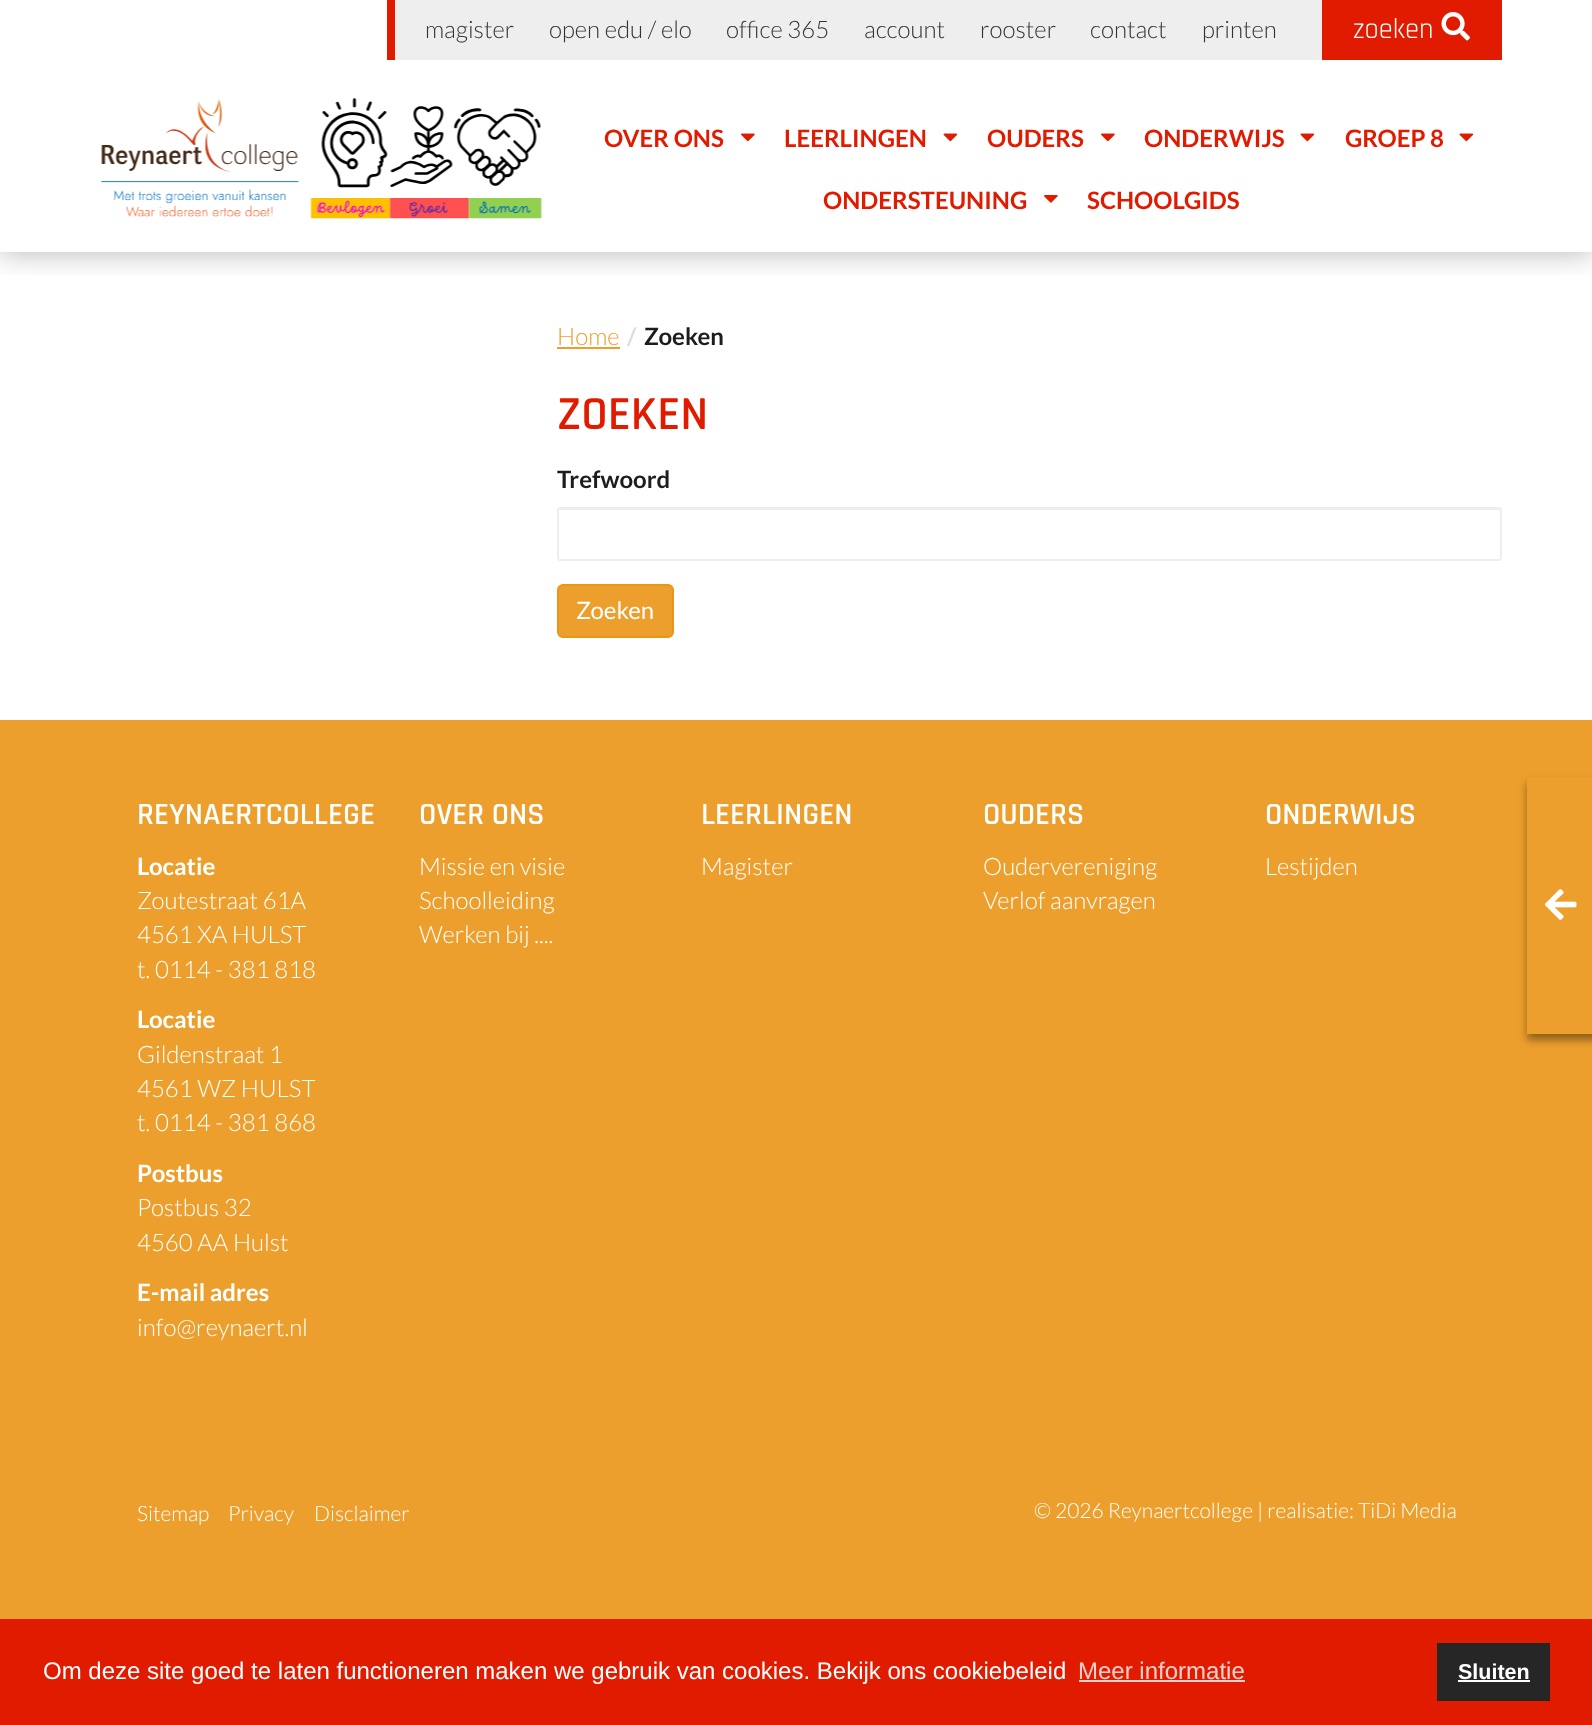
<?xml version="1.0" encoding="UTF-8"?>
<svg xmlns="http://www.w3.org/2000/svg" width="1592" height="1725">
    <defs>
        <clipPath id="clip1"><rect x="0" y="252" width="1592" height="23"/></clipPath>
        <filter id="blur1" x="-50%" y="-200%" width="200%" height="500%"><feGaussianBlur stdDeviation="15"/></filter>
        <filter id="blur2" x="-50%" y="-200%" width="200%" height="500%"><feGaussianBlur stdDeviation="4"/></filter>
    </defs>
    <rect width="100%" height="100%" fill="#FFFFFF"/>
    <g clip-path="url(#clip1)">
        <rect x="0" y="0" width="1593" height="252" fill="#000000" fill-opacity="0.3" filter="url(#blur1)"/>
    </g>
    <rect x="395" y="0" width="927" height="60" fill="#EEEEEE"/>
    <rect x="387" y="0" width="8" height="60" fill="#E01B00"/>
    <text x="425" y="38" font-family="Lato" font-size="24" font-weight="300" fill="#333333">magister</text>
    <text x="549" y="38" font-family="Lato" font-size="24" font-weight="300" fill="#333333">open edu / elo</text>
    <text x="726" y="38" font-family="Lato" font-size="24" font-weight="300" fill="#333333">office 365</text>
    <text x="864" y="38" font-family="Lato" font-size="24" font-weight="300" fill="#333333">account</text>
    <text x="980" y="38" font-family="Lato" font-size="24" font-weight="300" fill="#333333">rooster</text>
    <text x="1090" y="38" font-family="Lato" font-size="24" font-weight="300" fill="#333333">contact</text>
    <text x="1202" y="38" font-family="Lato" font-size="24" font-weight="300" fill="#333333">printen</text>
    <rect x="1322" y="0" width="180" height="60" fill="#E01B00"/>
    <text x="1353" y="38" font-family="Rajdhani" font-size="28.5" fill="#FFFFFF">zoeken</text>
    <image x="1441" y="12" width="29" height="29" href="img_01.png"/>
    <image x="100" y="98" width="442" height="121" href="img_02.png"/>
    <text x="604" y="147" font-family="Lato" font-size="24" font-weight="700" fill="#E01B00">OVER ONS</text>
    <image x="741" y="133" width="14" height="9" href="img_03.png"/>
    <text x="784" y="147" font-family="Lato" font-size="24" font-weight="700" fill="#E01B00">LEERLINGEN</text>
    <image x="943" y="133" width="15" height="9" href="img_04.png"/>
    <text x="987" y="147" font-family="Lato" font-size="24" font-weight="700" fill="#E01B00">OUDERS</text>
    <image x="1101" y="133" width="14" height="9" href="img_03.png"/>
    <text x="1144" y="147" font-family="Lato" font-size="24" font-weight="700" fill="#E01B00">ONDERWIJS</text>
    <image x="1300" y="133" width="15" height="9" href="img_04.png"/>
    <text x="1345" y="147" font-family="Lato" font-size="24" font-weight="700" fill="#E01B00">GROEP 8</text>
    <image x="1459" y="133" width="15" height="9" href="img_04.png"/>
    <text x="823" y="209" font-family="Lato" font-size="24" font-weight="700" fill="#E01B00">ONDERSTEUNING</text>
    <image x="1044" y="195" width="14" height="8" href="img_05.png"/>
    <text x="1087" y="209" font-family="Lato" font-size="24" font-weight="700" fill="#E01B00">SCHOOLGIDS</text>
    <text x="557" y="345" font-family="Lato" font-size="24" font-weight="300" fill="#ED9F2D">Home</text>
    <rect x="557" y="347" width="63" height="2" fill="#ED9F2D"/>
    <text x="627" y="345" font-family="Lato" font-size="24" font-weight="700" fill="#DDDDDD">/</text>
    <text x="644" y="345" font-family="Lato" font-size="24" font-weight="700" fill="#1D1D1B">Zoeken</text>
    <text x="557" y="429" font-family="Rajdhani" font-size="48" font-weight="600" fill="#E01B00">ZOEKEN</text>
    <text x="557" y="488" font-family="Lato" font-size="24" font-weight="700" fill="#1D1D1B">Trefwoord</text>
    <path d="M 560 510 H 1498 C 1499 510 1500 511 1500 512 C 1500 511 1500 509 1498 509 H 560 C 558 509 558 511 558 512 C 558 511 559 510 560 510 Z" fill="#ECECEC"/>
    <rect x="558" y="508" width="943" height="52" rx="2" fill="none" stroke="#EEEEEE" stroke-width="2"/>
    <rect x="558" y="585" width="115" height="52" rx="5" fill="#ED9F2D" stroke="#EB9416" stroke-width="2"/>
    <text x="576" y="619" font-family="Lato" font-size="24" fill="#FFFFFF">Zoeken</text>
    <rect x="0" y="720" width="1592" height="899" fill="#ED9F2D"/>
    <text x="137" y="824" font-family="Rajdhani" font-size="31.25" font-weight="600" fill="#FFFFFF">REYNAERTCOLLEGE</text>
    <text x="137" y="875" font-family="Lato" font-size="24" font-weight="700" fill="#FFFFFF">Locatie</text>
    <text font-family="Lato" font-size="24" font-weight="300" fill="#FFFFFF">
        <tspan x="137" y="909">Zoutestraat 61A</tspan>
        <tspan x="137" y="943">4561 XA HULST</tspan>
        <tspan x="137" y="978">t. 0114 - 381 818</tspan>
    </text>
    <text x="137" y="1028" font-family="Lato" font-size="24" font-weight="700" fill="#FFFFFF">Locatie</text>
    <text font-family="Lato" font-size="24" font-weight="300" fill="#FFFFFF">
        <tspan x="137" y="1063">Gildenstraat 1</tspan>
        <tspan x="137" y="1097">4561 WZ HULST</tspan>
        <tspan x="137" y="1131">t. 0114 - 381 868</tspan>
    </text>
    <text x="137" y="1182" font-family="Lato" font-size="24" font-weight="700" fill="#FFFFFF">Postbus</text>
    <text font-family="Lato" font-size="24" font-weight="300" fill="#FFFFFF">
        <tspan x="137" y="1216">Postbus 32</tspan>
        <tspan x="137" y="1251">4560 AA Hulst</tspan>
    </text>
    <text x="137" y="1301" font-family="Lato" font-size="24" font-weight="700" fill="#FFFFFF">E-mail adres</text>
    <text x="137" y="1336" font-family="Lato" font-size="24" font-weight="300" fill="#FFFFFF">info@reynaert.nl</text>
    <text x="419" y="824" font-family="Rajdhani" font-size="31.25" font-weight="600" fill="#FFFFFF">OVER ONS</text>
    <text font-family="Lato" font-size="24" font-weight="300" fill="#FFFFFF">
        <tspan x="419" y="875">Missie en visie</tspan>
        <tspan x="419" y="909">Schoolleiding</tspan>
        <tspan x="419" y="943">Werken bij ....</tspan>
    </text>
    <text x="701" y="824" font-family="Rajdhani" font-size="31.25" font-weight="600" fill="#FFFFFF">LEERLINGEN</text>
    <text x="701" y="875" font-family="Lato" font-size="24" font-weight="300" fill="#FFFFFF">Magister</text>
    <text x="983" y="824" font-family="Rajdhani" font-size="31.25" font-weight="600" fill="#FFFFFF">OUDERS</text>
    <text font-family="Lato" font-size="24" font-weight="300" fill="#FFFFFF">
        <tspan x="983" y="875">Oudervereniging</tspan>
        <tspan x="983" y="909">Verlof aanvragen</tspan>
    </text>
    <text x="1265" y="824" font-family="Rajdhani" font-size="31.25" font-weight="600" fill="#FFFFFF">ONDERWIJS</text>
    <text x="1265" y="875" font-family="Lato" font-size="24" font-weight="300" fill="#FFFFFF">Lestijden</text>
    <text x="137" y="1521" font-family="Lato" font-size="21" font-weight="300" fill="#FFFFFF">Sitemap</text>
    <text x="228" y="1521" font-family="Lato" font-size="21" font-weight="300" fill="#FFFFFF">Privacy</text>
    <text x="314" y="1521" font-family="Lato" font-size="21" font-weight="300" fill="#FFFFFF">Disclaimer</text>
    <text x="1034" y="1518" font-family="Lato" font-size="21" font-weight="300" fill="#FFFFFF">© 2026 Reynaertcollege | realisatie: TiDi Media</text>
    <rect x="1527" y="783" width="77" height="257" fill="#000000" fill-opacity="0.4" filter="url(#blur2)"/>
    <rect x="1527" y="777" width="65" height="257" fill="#ED9F2D"/>
    <image x="1545" y="889" width="32" height="31" href="img_06.png"/>
    <rect x="0" y="1619" width="1592" height="106" fill="#E01B00"/>
    <text x="43" y="1679" font-family="Liberation Sans" font-size="24" fill="#FFFFFF">Om deze site goed te laten functioneren maken we gebruik van cookies. Bekijk ons cookiebeleid</text>
    <text x="1078" y="1679" font-family="Liberation Sans" font-size="24" fill="#F9D1CC">Meer informatie</text>
    <rect x="1079" y="1680" width="166" height="2" fill="#F9D1CC"/>
    <rect x="1437" y="1643" width="113" height="58" fill="#262626"/>
    <text x="1458" y="1679" font-family="Liberation Sans" font-size="21.5" font-weight="700" fill="#FFFFFF">Sluiten</text>
    <rect x="1458" y="1680" width="72" height="2" fill="#FFFFFF"/>
</svg>
